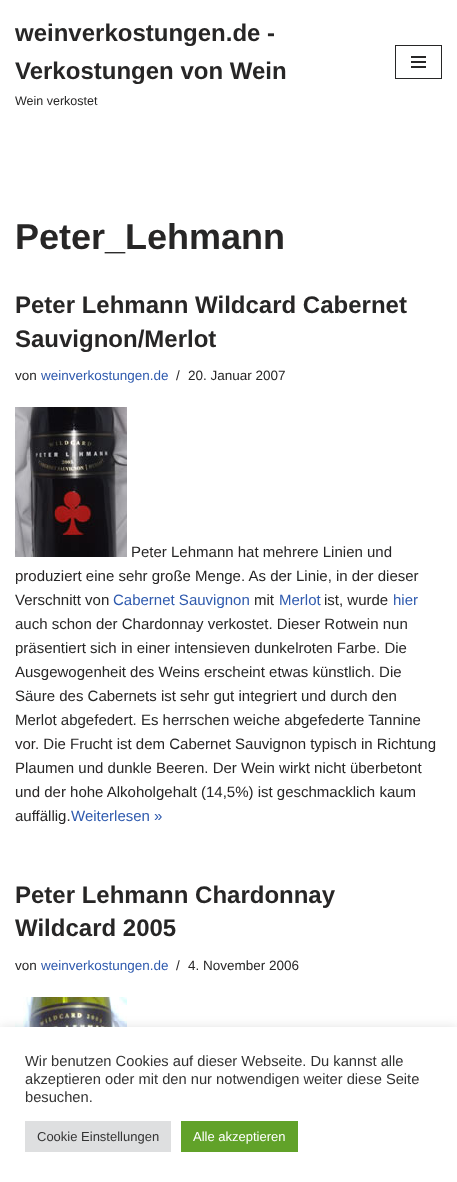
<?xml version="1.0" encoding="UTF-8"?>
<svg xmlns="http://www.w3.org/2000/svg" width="457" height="1182">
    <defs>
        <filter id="blur1" x="-50%" y="-200%" width="200%" height="500%"><feGaussianBlur stdDeviation="5"/></filter>
    </defs>
    <rect width="100%" height="100%" fill="#FFFFFF"/>
    <text font-family="Liberation Sans" font-size="24" font-weight="700" fill="#272626">
        <tspan x="15" y="41">weinverkostungen.de -</tspan>
        <tspan x="15" y="79">Verkostungen von Wein</tspan>
    </text>
    <text x="15" y="105" font-family="Liberation Sans" font-size="12.5" fill="#272626">Wein verkostet</text>
    <rect x="395.5" y="45.5" width="46" height="33" fill="none" stroke="#272626"/>
    <rect x="411" y="56" width="15" height="2" fill="#272626"/>
    <rect x="411" y="61" width="15" height="2" fill="#272626"/>
    <rect x="411" y="66" width="15" height="2" fill="#272626"/>
    <text x="15" y="249" font-family="Liberation Sans" font-size="36" font-weight="700" fill="#272626">Peter_Lehmann</text>
    <text font-family="Liberation Sans" font-size="24" font-weight="700" fill="#272626">
        <tspan x="15" y="313">Peter Lehmann Wildcard Cabernet</tspan>
        <tspan x="15" y="347">Sauvignon/Merlot</tspan>
    </text>
    <text x="15" y="380" font-family="Liberation Sans" font-size="13.5" fill="#272626">von</text>
    <text x="41" y="380" font-family="Liberation Sans" font-size="13.5" fill="#2F5AAE">weinverkostungen.de</text>
    <text x="176" y="380" font-family="Liberation Sans" font-size="13.5" fill="#272626">/</text>
    <text x="188" y="380" font-family="Liberation Sans" font-size="13.5" fill="#272626">20. Januar 2007</text>
    <image x="15" y="407" width="112" height="150" href="img_01.png"/>
    <text x="131" y="557" font-family="Liberation Sans" font-size="15" fill="#272626">Peter Lehmann hat mehrere Linien und</text>
    <text font-family="Liberation Sans" font-size="15" fill="#272626">
        <tspan x="15" y="581">produziert eine sehr große Menge. As der Linie, in der dieser</tspan>
        <tspan x="15" y="605">Verschnitt von</tspan>
    </text>
    <text x="113" y="605" font-family="Liberation Sans" font-size="15" fill="#2F5AAE">Cabernet Sauvignon</text>
    <text x="254" y="605" font-family="Liberation Sans" font-size="15" fill="#272626">mit</text>
    <text x="279" y="605" font-family="Liberation Sans" font-size="15" fill="#2F5AAE">Merlot</text>
    <text x="324" y="605" font-family="Liberation Sans" font-size="15" fill="#272626">ist, wurde</text>
    <text x="393" y="605" font-family="Liberation Sans" font-size="15" fill="#2F5AAE">hier</text>
    <text font-family="Liberation Sans" font-size="15" fill="#272626">
        <tspan x="15" y="629">auch schon der Chardonnay verkostet. Dieser Rotwein nun</tspan>
        <tspan x="15" y="653">präsentiert sich in einer intensieven dunkelroten Farbe. Die</tspan>
        <tspan x="15" y="677">Ausgewogenheit des Weins erscheint etwas künstlich. Die</tspan>
        <tspan x="15" y="701">Säure des Cabernets ist sehr gut integriert und durch den</tspan>
        <tspan x="15" y="725">Merlot abgefedert. Es herrschen weiche abgefederte Tannine</tspan>
        <tspan x="15" y="749">vor. Die Frucht ist dem Cabernet Sauvignon typisch in Richtung</tspan>
        <tspan x="15" y="773">Plaumen und dunkle Beeren. Der Wein wirkt nicht überbetont</tspan>
        <tspan x="15" y="797">und der hohe Alkoholgehalt (14,5%) ist geschmacklich kaum</tspan>
        <tspan x="15" y="821">auffällig.</tspan>
    </text>
    <text x="71" y="821" font-family="Liberation Sans" font-size="15" fill="#2F5AAE">Weiterlesen »</text>
    <text font-family="Liberation Sans" font-size="24" font-weight="700" fill="#272626">
        <tspan x="15" y="903">Peter Lehmann Chardonnay</tspan>
        <tspan x="15" y="936">Wildcard 2005</tspan>
    </text>
    <text x="15" y="970" font-family="Liberation Sans" font-size="13.5" fill="#272626">von</text>
    <text x="41" y="970" font-family="Liberation Sans" font-size="13.5" fill="#2F5AAE">weinverkostungen.de</text>
    <text x="176" y="970" font-family="Liberation Sans" font-size="13.5" fill="#272626">/</text>
    <text x="188" y="970" font-family="Liberation Sans" font-size="13.5" fill="#272626">4. November 2006</text>
    <image x="15" y="997" width="112" height="30" href="img_02.png"/>
    <rect x="0" y="1026" width="457" height="155" fill="#ACABAB" fill-opacity="0.3" filter="url(#blur1)"/>
    <rect x="0" y="1027" width="457" height="155" fill="#FFFFFF"/>
    <text font-family="Liberation Sans" font-size="14.7" fill="#333333">
        <tspan x="25" y="1066">Wir benutzen Cookies auf dieser Webseite. Du kannst alle</tspan>
        <tspan x="25" y="1084">akzeptieren oder mit den nur notwendigen weiter diese Seite</tspan>
        <tspan x="25" y="1102">besuchen.</tspan>
    </text>
    <rect x="25" y="1121" width="146" height="31" fill="#DEDFE0"/>
    <text x="37" y="1141" font-family="Liberation Sans" font-size="13" fill="#333333">Cookie Einstellungen</text>
    <rect x="181" y="1121" width="117" height="31" fill="#61A229"/>
    <text x="193" y="1141" font-family="Liberation Sans" font-size="13" fill="#FFFFFF">Alle akzeptieren</text>
</svg>
